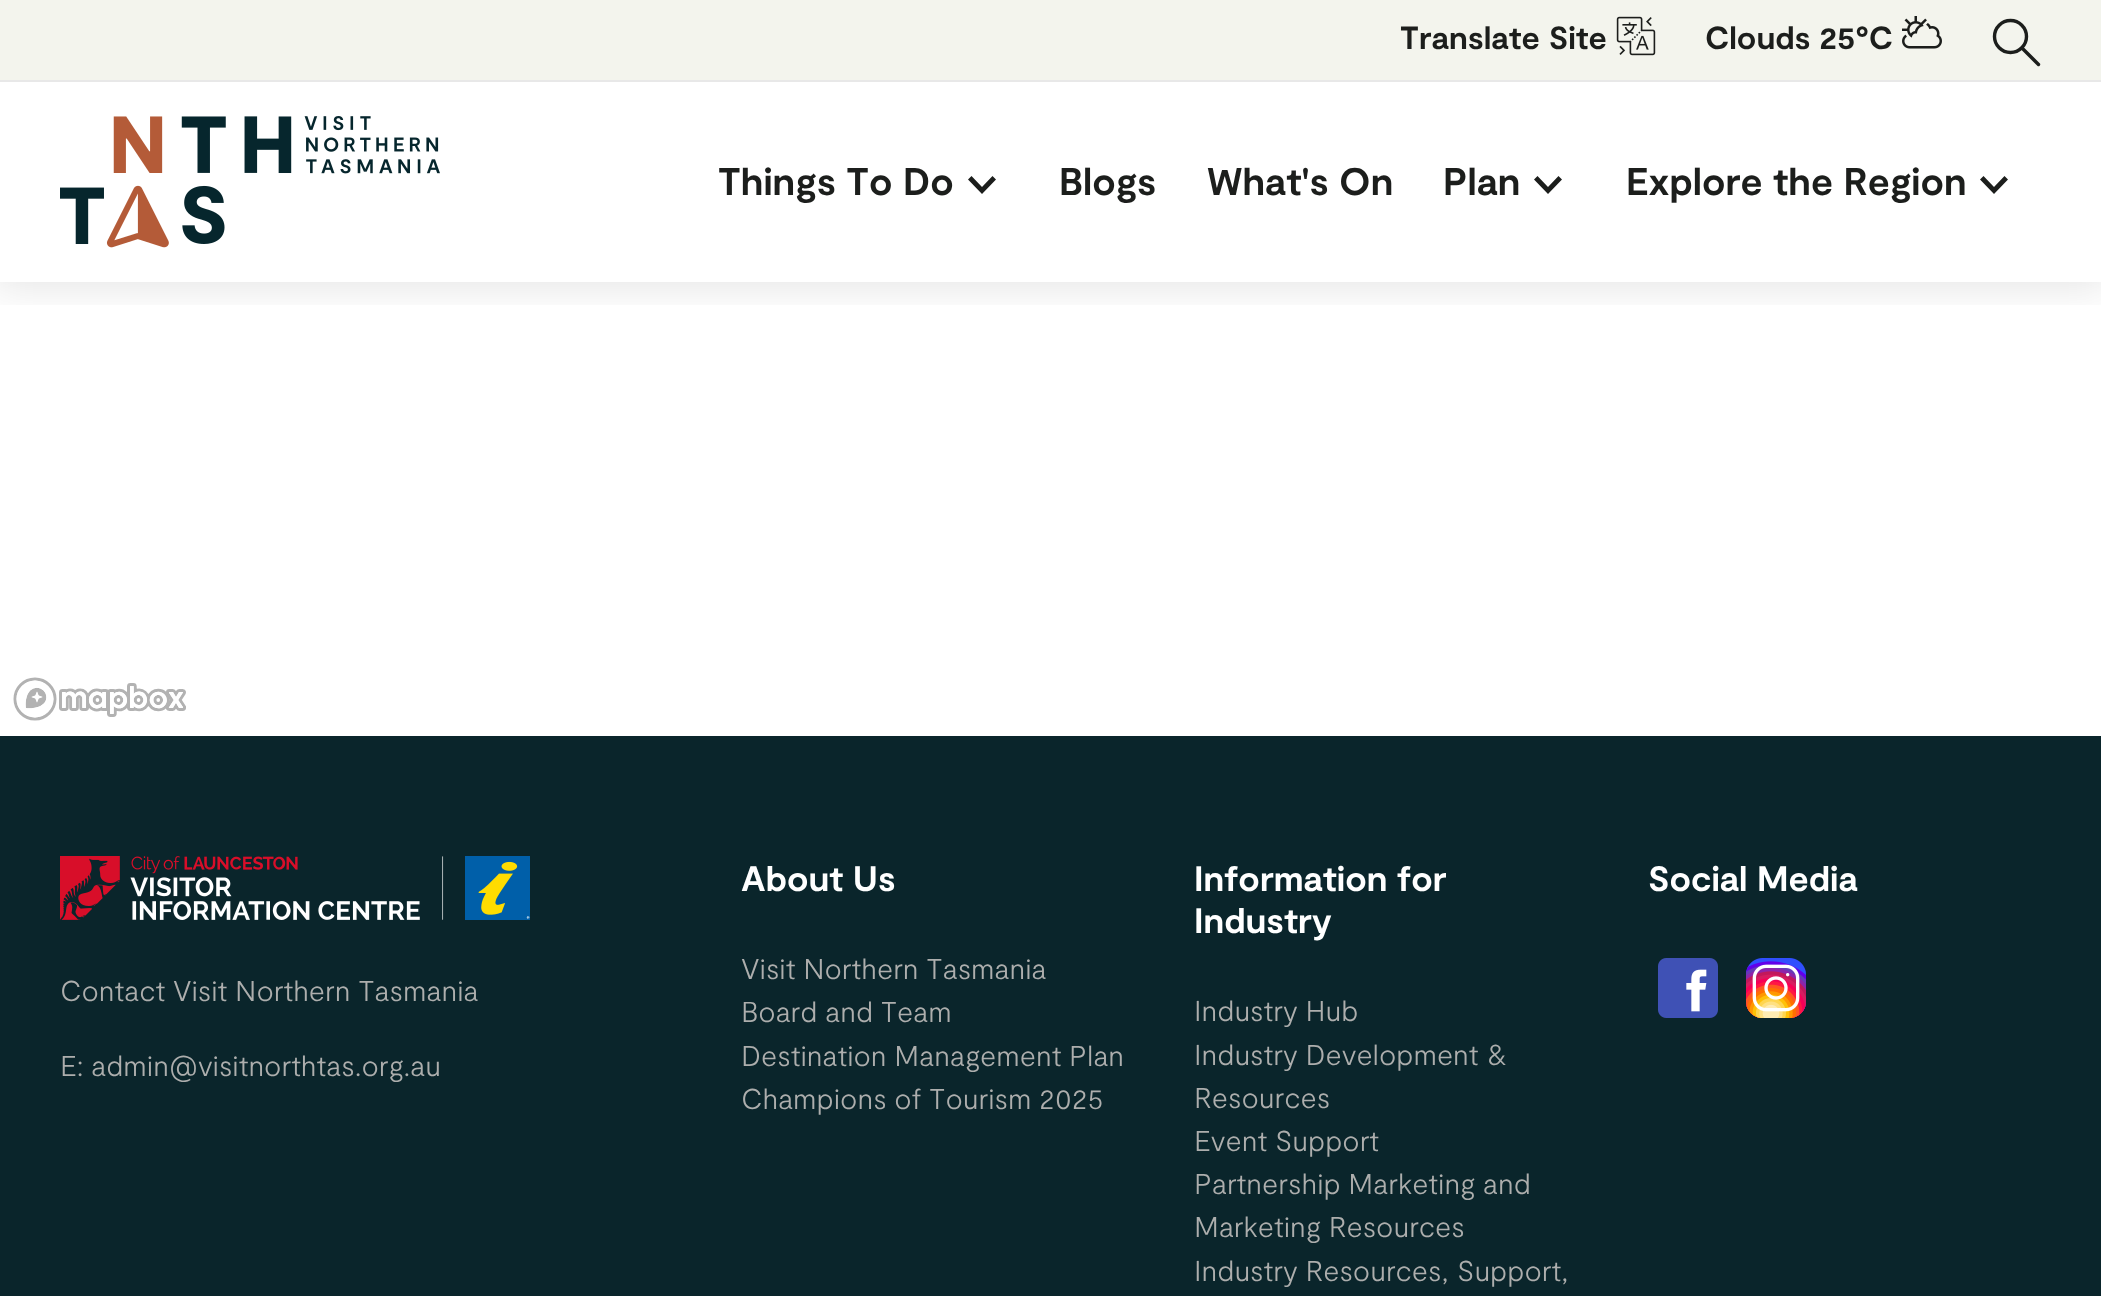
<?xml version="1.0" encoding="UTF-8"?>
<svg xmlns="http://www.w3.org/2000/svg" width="2101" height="1296">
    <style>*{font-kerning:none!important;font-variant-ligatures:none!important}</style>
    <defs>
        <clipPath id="clip1"><rect x="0" y="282" width="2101" height="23"/></clipPath>
        <filter id="blur1" x="-50%" y="-200%" width="200%" height="500%"><feGaussianBlur stdDeviation="20"/></filter>
    </defs>
    <rect width="100%" height="100%" fill="#FFFFFF"/>
    <g clip-path="url(#clip1)">
        <rect x="-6" y="-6" width="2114" height="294" fill="#000000" fill-opacity="0.1" filter="url(#blur1)"/>
    </g>
    <rect x="0" y="0" width="2101" height="80" fill="#F3F4ED"/>
    <rect x="0" y="80" width="2101" height="2" fill="#E8E8E8"/>
    <text x="1400" y="49" font-family="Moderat" font-size="32" font-weight="700" fill="#1C1E1C">Translate Site</text>
    <image x="1616" y="16" width="40" height="40" href="img_01.png"/>
    <text x="1705" y="49" font-family="Moderat" font-size="32" font-weight="700" fill="#1C1E1C">Clouds 25°C</text>
    <image x="1902" y="16" width="40" height="33" href="img_02.png"/>
    <circle cx="2010.5" cy="36.5" r="16" fill="none" stroke="#1C1E1C" stroke-width="3.4"/>
    <path d="M 2038.5 64.5 L 2022 48" fill="none" stroke="#1C1E1C" stroke-width="3.4" stroke-linecap="round" stroke-linejoin="round"/>
    <image x="60" y="116" width="380" height="132" href="img_03.png"/>
    <text x="718" y="195" font-family="Moderat" font-size="38.5" font-weight="700" fill="#1C1E1C">Things To Do</text>
    <path d="M 971.5 176 L 968 179.5 L 982 194 L 996 179.5 L 992.5 176 L 982 187 Z" fill="#1C1E1C"/>
    <text x="1059" y="195" font-family="Moderat" font-size="38.5" font-weight="700" fill="#1C1E1C">Blogs</text>
    <text x="1207" y="195" font-family="Moderat" font-size="38.5" font-weight="700" fill="#1C1E1C">What's On</text>
    <text x="1443" y="195" font-family="Moderat" font-size="38.5" font-weight="700" fill="#1C1E1C">Plan</text>
    <path d="M 1537.5 176 L 1534 179.5 L 1548 194 L 1562 179.5 L 1558.5 176 L 1548 187 Z" fill="#1C1E1C"/>
    <text x="1626" y="195" font-family="Moderat" font-size="38.5" font-weight="700" fill="#1C1E1C">Explore the Region</text>
    <path d="M 1983.5 176 L 1980 179.5 L 1994 194 L 2008 179.5 L 2004.5 176 L 1994 187 Z" fill="#1C1E1C"/>
    <image x="13" y="677" width="173" height="44" href="img_04.png"/>
    <rect x="0" y="736" width="2101" height="560" fill="#0A252B"/>
    <image x="60" y="856" width="470" height="64" href="img_05.png"/>
    <text x="60" y="1001" font-family="Moderat" font-size="28.75" font-weight="300" fill="#ADAEAD">Contact Visit Northern Tasmania</text>
    <text x="60" y="1076" font-family="Moderat" font-size="28.75" font-weight="300" fill="#ADAEAD">E: admin@visitnorthtas.org.au</text>
    <text x="741" y="891" font-family="Moderat" font-size="35.25" font-weight="700" fill="#FFFFFF">About Us</text>
    <text font-family="Moderat" font-size="28.75" font-weight="300" fill="#ADAEAD">
        <tspan x="741" y="979">Visit Northern Tasmania</tspan>
        <tspan x="741" y="1022">Board and Team</tspan>
        <tspan x="741" y="1066">Destination Management Plan</tspan>
        <tspan x="741" y="1109">Champions of Tourism</tspan>
    </text>
    <text x="1039" y="1109" font-family="Moderat" font-size="28.75" font-weight="300" fill="#ADAEAD">2025</text>
    <text font-family="Moderat" font-size="35.25" font-weight="700" fill="#FFFFFF">
        <tspan x="1194" y="891">Information for</tspan>
        <tspan x="1194" y="933">Industry</tspan>
    </text>
    <text font-family="Moderat" font-size="28.75" font-weight="300" fill="#ADAEAD">
        <tspan x="1194" y="1021">Industry Hub</tspan>
        <tspan x="1194" y="1065">Industry Development</tspan>
    </text>
    <text x="1487" y="1065" font-family="Moderat" font-size="28.75" font-weight="300" fill="#ADAEAD">&amp;</text>
    <text font-family="Moderat" font-size="28.75" font-weight="300" fill="#ADAEAD">
        <tspan x="1194" y="1108">Resources</tspan>
        <tspan x="1194" y="1151">Event Support</tspan>
        <tspan x="1194" y="1194">Partnership Marketing and</tspan>
        <tspan x="1194" y="1237">Marketing Resources</tspan>
        <tspan x="1194" y="1281">Industry Resources,</tspan>
    </text>
    <text x="1457" y="1281" font-family="Moderat" font-size="28.75" font-weight="300" fill="#ADAEAD">Support,</text>
    <text x="1648" y="891" font-family="Moderat" font-size="35.25" font-weight="700" fill="#FFFFFF">Social Media</text>
    <image x="1658" y="958" width="60" height="60" href="img_06.png"/>
    <image x="1746" y="958" width="60" height="60" href="img_07.png"/>
</svg>
